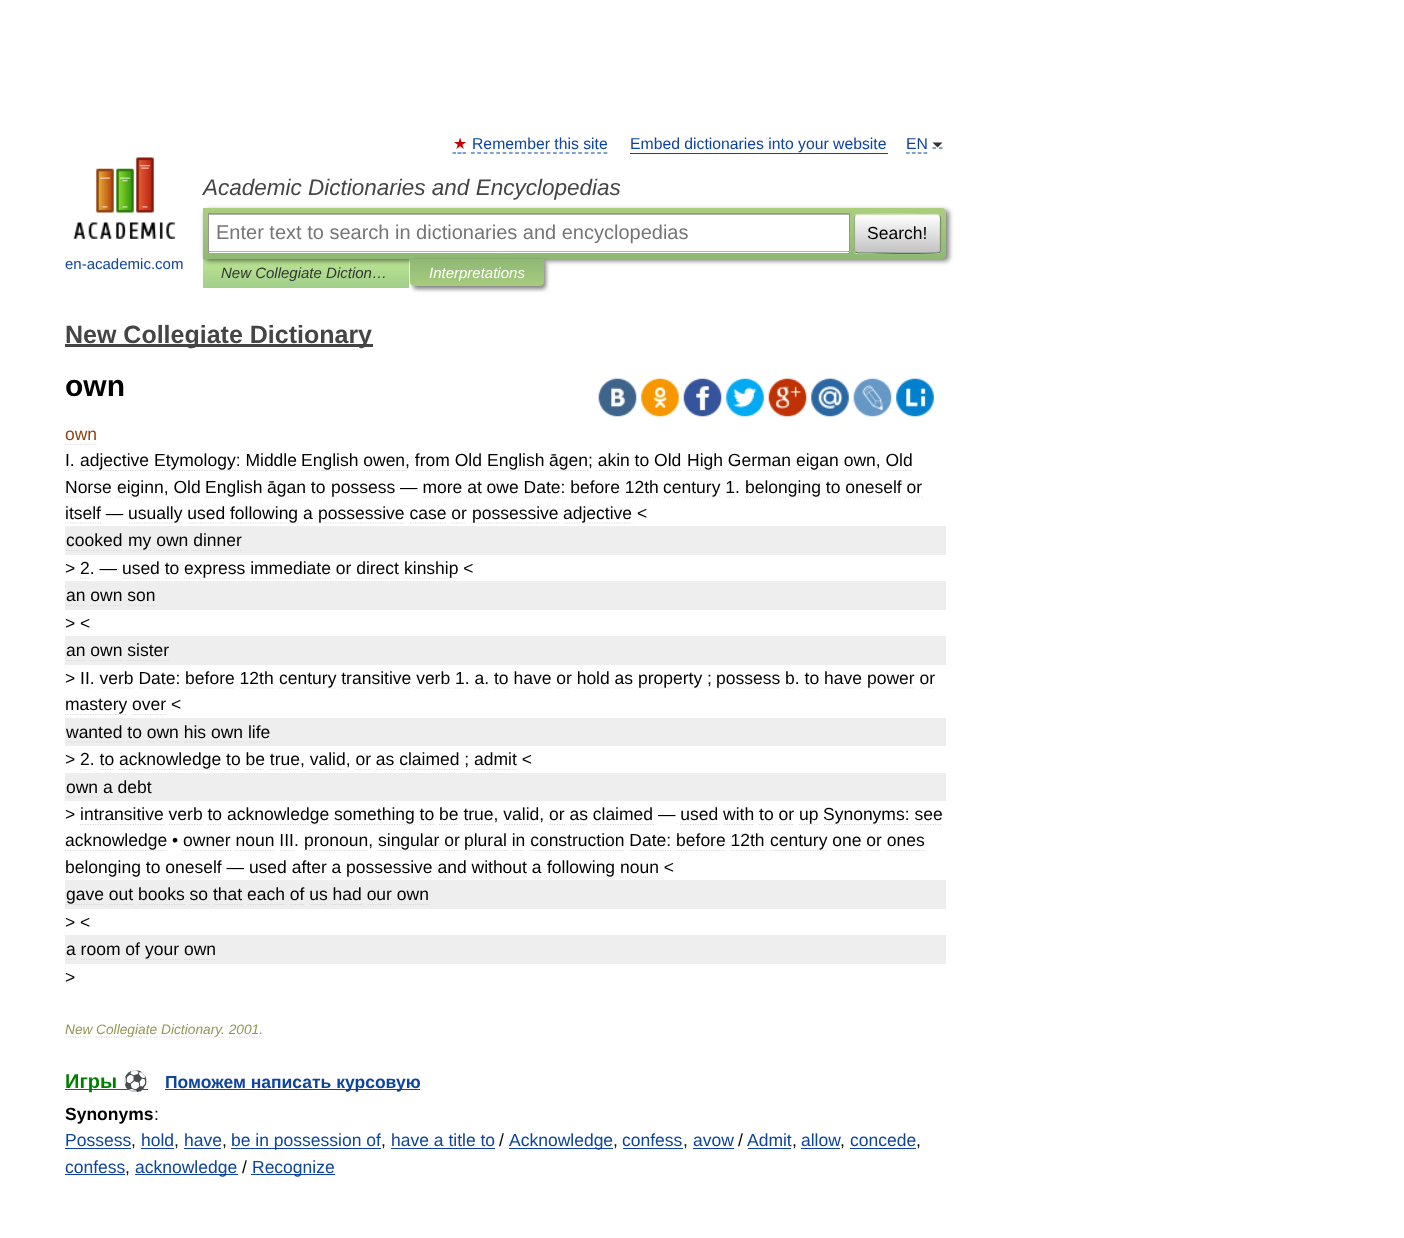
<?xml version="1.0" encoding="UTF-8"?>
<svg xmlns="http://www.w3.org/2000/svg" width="1404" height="1238">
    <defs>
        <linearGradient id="g1" gradientUnits="userSpaceOnUse" x1="306" y1="259" x2="306" y2="288"><stop offset="0" stop-color="#BDE693"/><stop offset="1" stop-color="#A0CE8A"/></linearGradient>
        <filter id="blur1" x="-50%" y="-200%" width="200%" height="500%"><feGaussianBlur stdDeviation="2.5"/></filter>
        <linearGradient id="g2" gradientUnits="userSpaceOnUse" x1="574" y1="207" x2="574" y2="259"><stop offset="0" stop-color="#ABCF7E"/><stop offset="1" stop-color="#8EB874"/></linearGradient>
        <clipPath id="clip1"><rect x="854" y="214" width="87" height="40" rx="4"/></clipPath>
        <linearGradient id="g3" gradientUnits="userSpaceOnUse" x1="898" y1="215" x2="898" y2="253"><stop offset="0" stop-color="#FFFFFF"/><stop offset="1" stop-color="#C1C1C1"/></linearGradient>
        <linearGradient id="g4" gradientUnits="userSpaceOnUse" x1="898" y1="253" x2="898" y2="290"><stop offset="0" stop-color="#FFFFFF"/><stop offset="1" stop-color="#C1C1C1"/></linearGradient>
        <filter id="blur2" x="-50%" y="-200%" width="200%" height="500%"><feGaussianBlur stdDeviation="2"/></filter>
        <linearGradient id="g5" gradientUnits="userSpaceOnUse" x1="477" y1="259" x2="477" y2="286"><stop offset="0" stop-color="#8FB875"/><stop offset="1" stop-color="#A7CC7D"/></linearGradient>
    </defs>
    <rect width="100%" height="100%" fill="#FFFFFF"/>
    <text x="453" y="149" font-family="DejaVu Sans" font-size="15.75" fill="#CC0000">★</text>
    <path d="M 452.5 153 H 456 M 457.5 153 H 461.5 M 462.5 153 H 466" fill="none" stroke="#0044AA" stroke-width="1.2"/>
    <text x="472" y="149" font-family="Liberation Sans" font-size="15.75" fill="#0D44A0">Remember this site</text>
    <path d="M 471 153 H 607.5" fill="none" stroke="#0044AA" stroke-width="1.2" stroke-dasharray="3.75 2.56"/>
    <text x="630" y="149" font-family="Liberation Sans" font-size="15.75" fill="#0D44A0">Embed dictionaries into your website</text>
    <rect x="630" y="153" width="258" height="1" fill="#0D44A0"/>
    <path d="M 906 153 H 927.5" fill="none" stroke="#0044AA" stroke-width="1.2" stroke-dasharray="3.75 2.09"/>
    <path d="M 932.5 148 H 936 M 939 148 H 942.5" fill="none" stroke="#0044AA" stroke-width="1.2"/>
    <text x="906" y="149" font-family="Liberation Sans" font-size="15.75" fill="#0D44A0">EN</text>
    <path d="M 932.5 142.5 H 942.5 L 937.5 147.5 Z" fill="#333333"/>
    <text x="203" y="195" font-family="Liberation Sans" font-size="22.5" font-style="italic" fill="#454545">Academic Dictionaries and Encyclopedias</text>
    <rect x="203" y="259" width="206" height="29" fill="url(#g1)"/>
    <rect x="205" y="210" width="744" height="51" rx="4" fill="#000000" fill-opacity="0.5" filter="url(#blur1)"/>
    <path d="M 203 208 H 942 C 944 208 946 210 946 212 V 255 C 946 257 944 259 942 259 H 203 Z" fill="url(#g2)"/>
    <rect x="209" y="215" width="640" height="38" fill="#FFFFFF"/>
    <rect x="209" y="214" width="640" height="1" fill="#B3B3B3"/>
    <rect x="208" y="213" width="642" height="1" fill="#949494"/>
    <rect x="849" y="213" width="1" height="40" fill="#949494"/>
    <rect x="208" y="251" width="642" height="1" fill="#B4B4B4"/>
    <rect x="208" y="213" width="1" height="40" fill="#949494"/>
    <text x="216" y="239" font-family="Liberation Sans" font-size="20" fill="#757575">Enter text to search in dictionaries and encyclopedias</text>
    <g clip-path="url(#clip1)">
        <rect x="854" y="215" width="87" height="38" fill="url(#g3)"/>
        <rect x="854" y="253" width="87" height="1" fill="url(#g4)"/>
    </g>
    <path d="M 855.5 215.5 V 215 C 857.5 213.5 916.5 214.5 924 214.5 H 937.5 L 939.5 215.5" fill="none" stroke="#D1E4BC" stroke-width="1.2"/>
    <path d="M 939.5 215.5 C 940.5 216 940.5 216.5 940.5 217.5 V 250 C 940.5 251 940.5 251.5 939.5 252" fill="none" stroke="#7A8E69" stroke-width="1.2"/>
    <path d="M 939.5 252 V 252.5 C 937.5 254 878.5 253 871 253 H 857.5 L 855.5 252" fill="none" stroke="#5D7250" stroke-width="1.2"/>
    <path d="M 855.5 252 C 854.5 251.5 854.5 251 854.5 250 V 217.5 C 854.5 216.5 854.5 216 855.5 215.5" fill="none" stroke="#9AAE89" stroke-width="1.2"/>
    <text x="867" y="239" font-family="Liberation Sans" font-size="17.5" fill="#000000">Search!</text>
    <image x="73" y="157" width="103" height="82" href="img_01.png"/>
    <text x="65" y="269" font-family="Liberation Sans" font-size="15" fill="#0D44A0">en-academic.com</text>
    <text x="221" y="278" font-family="Liberation Sans" font-size="15" font-style="italic" fill="#353535">New Collegiate Diction…</text>
    <rect x="413" y="261" width="133" height="28" rx="4" fill="#000000" fill-opacity="0.5" filter="url(#blur2)"/>
    <path d="M 410 259 H 544 V 282 C 544 284 542 286 540 286 H 414 C 412 286 410 284 410 282 Z" fill="url(#g5)"/>
    <text x="429" y="278" font-family="Liberation Sans" font-size="15" font-style="italic" fill="#FFFFFF">Interpretations</text>
    <rect x="65" y="344" width="308" height="3" fill="#454545"/>
    <text x="65" y="343" font-family="Liberation Sans" font-size="25" font-weight="700" fill="#454545">New Collegiate Dictionary</text>
    <text x="65" y="396" font-family="Liberation Sans" font-size="30" font-weight="700" fill="#000000">own</text>
    <image x="598" y="378" width="39" height="39" href="img_02.png"/>
    <image x="641" y="378" width="38" height="39" href="img_03.png"/>
    <image x="683" y="378" width="39" height="39" href="img_04.png"/>
    <image x="726" y="378" width="38" height="39" href="img_05.png"/>
    <image x="768" y="378" width="39" height="39" href="img_06.png"/>
    <image x="811" y="378" width="38" height="39" href="img_07.png"/>
    <image x="853" y="378" width="39" height="39" href="img_08.png"/>
    <image x="896" y="378" width="38" height="39" href="img_09.png"/>
    <text x="65" y="440" font-family="Liberation Sans" font-size="17.5" fill="#8B4513">own</text>
    <path d="M 65 444.5 H 97.5" fill="none" stroke="#D9D9D9" stroke-width="1.2" stroke-dasharray="1.25 1.25"/>
    <text x="65" y="466" font-family="Liberation Sans" font-size="17.5" fill="#000000">I.</text>
    <path d="M 65 470.5 H 66 M 67.5 470.5 H 69" fill="none" stroke="#D9D9D9" stroke-width="1.2"/>
    <path d="M 80 470.5 H 149" fill="none" stroke="#D9D9D9" stroke-width="1.2" stroke-dasharray="1.25 1.25"/>
    <text x="80" y="466" font-family="Liberation Sans" font-size="17.5" fill="#000000">adjective</text>
    <path d="M 154 470.5 H 240" fill="none" stroke="#D9D9D9" stroke-width="1.2" stroke-dasharray="1.25 1.25"/>
    <text x="154" y="466" font-family="Liberation Sans" font-size="17.5" fill="#000000">Etymology: Middle</text>
    <path d="M 245 470.5 H 296" fill="none" stroke="#D9D9D9" stroke-width="1.2" stroke-dasharray="1.25 1.25"/>
    <path d="M 301 470.5 H 359" fill="none" stroke="#D9D9D9" stroke-width="1.2" stroke-dasharray="1.25 1.25"/>
    <text x="301" y="466" font-family="Liberation Sans" font-size="17.5" fill="#000000">English owen, from Old</text>
    <path d="M 364 470.5 H 405" fill="none" stroke="#D9D9D9" stroke-width="1.2" stroke-dasharray="1.25 1.25"/>
    <path d="M 415 470.5 H 450" fill="none" stroke="#D9D9D9" stroke-width="1.2" stroke-dasharray="1.25 1.25"/>
    <path d="M 455 470.5 H 482.5" fill="none" stroke="#D9D9D9" stroke-width="1.2" stroke-dasharray="1.25 1.25"/>
    <path d="M 487.5 470.5 H 545" fill="none" stroke="#D9D9D9" stroke-width="1.2" stroke-dasharray="1.25 1.25"/>
    <text x="487" y="466" font-family="Liberation Sans" font-size="17.5" fill="#000000">English</text>
    <path d="M 550 470.5 H 589" fill="none" stroke="#D9D9D9" stroke-width="1.2" stroke-dasharray="1.25 1.25"/>
    <text x="549" y="466" font-family="Liberation Sans" font-size="17.5" fill="#000000">āgen; akin to Old</text>
    <path d="M 599 470.5 H 630 M 635 470.5 H 650" fill="none" stroke="#D9D9D9" stroke-width="1.2" stroke-dasharray="1.25 1.25"/>
    <path d="M 655 470.5 H 681" fill="none" stroke="#D9D9D9" stroke-width="1.2" stroke-dasharray="1.25 1.25"/>
    <path d="M 686 470.5 H 722.5" fill="none" stroke="#D9D9D9" stroke-width="1.2" stroke-dasharray="1.25 1.25"/>
    <text x="687" y="466" font-family="Liberation Sans" font-size="17.5" fill="#000000">High German</text>
    <path d="M 727.5 470.5 H 791" fill="none" stroke="#D9D9D9" stroke-width="1.2" stroke-dasharray="1.25 1.25"/>
    <path d="M 796 470.5 H 839" fill="none" stroke="#D9D9D9" stroke-width="1.2" stroke-dasharray="1.25 1.25"/>
    <text x="796" y="466" font-family="Liberation Sans" font-size="17.5" fill="#000000">eigan own, Old</text>
    <path d="M 844 470.5 H 875" fill="none" stroke="#D9D9D9" stroke-width="1.2" stroke-dasharray="1.25 1.25"/>
    <path d="M 885 470.5 H 912.5" fill="none" stroke="#D9D9D9" stroke-width="1.2" stroke-dasharray="1.25 1.25"/>
    <text x="65" y="493" font-family="Liberation Sans" font-size="17.5" fill="#000000">Norse</text>
    <path d="M 65 497 H 111" fill="none" stroke="#D9D9D9" stroke-width="1.2" stroke-dasharray="1.25 1.25"/>
    <path d="M 116 497 H 164" fill="none" stroke="#D9D9D9" stroke-width="1.2" stroke-dasharray="1.25 1.25"/>
    <text x="117" y="493" font-family="Liberation Sans" font-size="17.5" fill="#000000">eiginn, Old</text>
    <path d="M 172.5 497 H 200" fill="none" stroke="#D9D9D9" stroke-width="1.2" stroke-dasharray="1.25 1.25"/>
    <path d="M 205 497 H 262.5" fill="none" stroke="#D9D9D9" stroke-width="1.2" stroke-dasharray="1.25 1.25"/>
    <text x="205" y="493" font-family="Liberation Sans" font-size="17.5" fill="#000000">English</text>
    <path d="M 267.5 497 H 306" fill="none" stroke="#D9D9D9" stroke-width="1.2" stroke-dasharray="1.25 1.25"/>
    <text x="267" y="493" font-family="Liberation Sans" font-size="17.5" fill="#000000">āgan to</text>
    <path d="M 311 497 H 326" fill="none" stroke="#D9D9D9" stroke-width="1.2" stroke-dasharray="1.25 1.25"/>
    <path d="M 331 497 H 395" fill="none" stroke="#D9D9D9" stroke-width="1.2" stroke-dasharray="1.25 1.25"/>
    <text x="331" y="493" font-family="Liberation Sans" font-size="17.5" fill="#000000">possess — more at owe Date: before 12th</text>
    <path d="M 422.5 497 H 462.5 M 466 497 H 481" fill="none" stroke="#D9D9D9" stroke-width="1.2" stroke-dasharray="1.25 1.25"/>
    <path d="M 486 497 H 519" fill="none" stroke="#D9D9D9" stroke-width="1.2" stroke-dasharray="1.25 1.25"/>
    <path d="M 664 497 H 721" fill="none" stroke="#D9D9D9" stroke-width="1.2" stroke-dasharray="1.25 1.25"/>
    <text x="663" y="493" font-family="Liberation Sans" font-size="17.5" fill="#000000">century 1.</text>
    <path d="M 524 497 H 565" fill="none" stroke="#D9D9D9" stroke-width="1.2" stroke-dasharray="1.25 1.25"/>
    <path d="M 570 497 H 620" fill="none" stroke="#D9D9D9" stroke-width="1.2" stroke-dasharray="1.25 1.25"/>
    <path d="M 625 497 H 659" fill="none" stroke="#D9D9D9" stroke-width="1.2" stroke-dasharray="1.25 1.25"/>
    <path d="M 745 497 H 821" fill="none" stroke="#D9D9D9" stroke-width="1.2" stroke-dasharray="1.25 1.25"/>
    <text x="745" y="493" font-family="Liberation Sans" font-size="17.5" fill="#000000">belonging to oneself or</text>
    <path d="M 726 497 H 727.5 M 728.5 497 H 730 M 731 497 H 732.5 M 734 497 H 735" fill="none" stroke="#D9D9D9" stroke-width="1.2"/>
    <path d="M 826 497 H 840" fill="none" stroke="#D9D9D9" stroke-width="1.2" stroke-dasharray="1.25 1.25"/>
    <path d="M 845 497 H 901" fill="none" stroke="#D9D9D9" stroke-width="1.2" stroke-dasharray="1.25 1.25"/>
    <path d="M 906 497 H 922.5" fill="none" stroke="#D9D9D9" stroke-width="1.2" stroke-dasharray="1.25 1.25"/>
    <text x="65" y="519" font-family="Liberation Sans" font-size="17.5" fill="#000000">itself —</text>
    <path d="M 65 523 H 101" fill="none" stroke="#D9D9D9" stroke-width="1.2" stroke-dasharray="1.25 1.25"/>
    <path d="M 129 523 H 182.5" fill="none" stroke="#D9D9D9" stroke-width="1.2" stroke-dasharray="1.25 1.25"/>
    <text x="128" y="519" font-family="Liberation Sans" font-size="17.5" fill="#000000">usually used</text>
    <path d="M 230 523 H 299" fill="none" stroke="#D9D9D9" stroke-width="1.2" stroke-dasharray="1.25 1.25"/>
    <text x="230" y="519" font-family="Liberation Sans" font-size="17.5" fill="#000000">following a</text>
    <path d="M 317.5 523 H 405" fill="none" stroke="#D9D9D9" stroke-width="1.2" stroke-dasharray="1.25 1.25"/>
    <text x="318" y="519" font-family="Liberation Sans" font-size="17.5" fill="#000000">possessive case or</text>
    <path d="M 471 523 H 559" fill="none" stroke="#D9D9D9" stroke-width="1.2" stroke-dasharray="1.25 1.25"/>
    <text x="472" y="519" font-family="Liberation Sans" font-size="17.5" fill="#000000">possessive</text>
    <path d="M 564 523 H 632.5" fill="none" stroke="#D9D9D9" stroke-width="1.2" stroke-dasharray="1.25 1.25"/>
    <text x="563" y="519" font-family="Liberation Sans" font-size="17.5" fill="#000000">adjective &lt;</text>
    <path d="M 187.5 523 H 225" fill="none" stroke="#D9D9D9" stroke-width="1.2" stroke-dasharray="1.25 1.25"/>
    <path d="M 304 523 H 305 M 306.5 523 H 307.5 M 309 523 H 310 M 311 523 H 312.5" fill="none" stroke="#D9D9D9" stroke-width="1.2"/>
    <path d="M 410 523 H 446 M 451 523 H 466" fill="none" stroke="#D9D9D9" stroke-width="1.2" stroke-dasharray="1.25 1.25"/>
    <rect x="65" y="526" width="881" height="29" fill="#EEEEEE"/>
    <text x="66" y="546" font-family="Liberation Sans" font-size="17.5" fill="#000000">cooked</text>
    <path d="M 66 550.5 H 122.5" fill="none" stroke="#D9D9D9" stroke-width="1.2" stroke-dasharray="1.25 1.25"/>
    <path d="M 127.5 550.5 H 151" fill="none" stroke="#D9D9D9" stroke-width="1.2" stroke-dasharray="1.25 1.25"/>
    <text x="128" y="546" font-family="Liberation Sans" font-size="17.5" fill="#000000">my own dinner</text>
    <path d="M 156 550.5 H 187.5" fill="none" stroke="#D9D9D9" stroke-width="1.2" stroke-dasharray="1.25 1.25"/>
    <path d="M 192.5 550.5 H 241" fill="none" stroke="#D9D9D9" stroke-width="1.2" stroke-dasharray="1.25 1.25"/>
    <text x="65" y="574" font-family="Liberation Sans" font-size="17.5" fill="#000000">&gt; 2. — used to</text>
    <path d="M 184 578 H 245" fill="none" stroke="#D9D9D9" stroke-width="1.2" stroke-dasharray="1.25 1.25"/>
    <text x="184" y="574" font-family="Liberation Sans" font-size="17.5" fill="#000000">express immediate or direct</text>
    <path d="M 404 578 H 459" fill="none" stroke="#D9D9D9" stroke-width="1.2" stroke-dasharray="1.25 1.25"/>
    <text x="404" y="574" font-family="Liberation Sans" font-size="17.5" fill="#000000">kinship &lt;</text>
    <path d="M 80 578 H 90" fill="none" stroke="#D9D9D9" stroke-width="1.2" stroke-dasharray="1.25 1.25"/>
    <path d="M 122.5 578 H 160 M 165 578 H 179" fill="none" stroke="#D9D9D9" stroke-width="1.2" stroke-dasharray="1.25 1.25"/>
    <path d="M 250 578 H 331" fill="none" stroke="#D9D9D9" stroke-width="1.2" stroke-dasharray="1.25 1.25"/>
    <path d="M 336 578 H 351 M 356 578 H 399" fill="none" stroke="#D9D9D9" stroke-width="1.2" stroke-dasharray="1.25 1.25"/>
    <rect x="65" y="581" width="881" height="29" fill="#EEEEEE"/>
    <text x="66" y="601" font-family="Liberation Sans" font-size="17.5" fill="#000000">an own son</text>
    <path d="M 66 605.5 H 86" fill="none" stroke="#D9D9D9" stroke-width="1.2" stroke-dasharray="1.25 1.25"/>
    <path d="M 90 605.5 H 122.5" fill="none" stroke="#D9D9D9" stroke-width="1.2" stroke-dasharray="1.25 1.25"/>
    <path d="M 127.5 605.5 H 156" fill="none" stroke="#D9D9D9" stroke-width="1.2" stroke-dasharray="1.25 1.25"/>
    <text x="65" y="629" font-family="Liberation Sans" font-size="17.5" fill="#000000">&gt; &lt;</text>
    <rect x="65" y="636" width="881" height="29" fill="#EEEEEE"/>
    <text x="66" y="656" font-family="Liberation Sans" font-size="17.5" fill="#000000">an own sister</text>
    <path d="M 66 660.5 H 86" fill="none" stroke="#D9D9D9" stroke-width="1.2" stroke-dasharray="1.25 1.25"/>
    <path d="M 90 660.5 H 122.5" fill="none" stroke="#D9D9D9" stroke-width="1.2" stroke-dasharray="1.25 1.25"/>
    <path d="M 127.5 660.5 H 170" fill="none" stroke="#D9D9D9" stroke-width="1.2" stroke-dasharray="1.25 1.25"/>
    <text x="65" y="684" font-family="Liberation Sans" font-size="17.5" fill="#000000">&gt; II. verb Date: before 12th</text>
    <path d="M 279 688 H 336" fill="none" stroke="#D9D9D9" stroke-width="1.2" stroke-dasharray="1.25 1.25"/>
    <text x="279" y="684" font-family="Liberation Sans" font-size="17.5" fill="#000000">century transitive verb 1. a. to have or hold as</text>
    <path d="M 139 688 H 180" fill="none" stroke="#D9D9D9" stroke-width="1.2" stroke-dasharray="1.25 1.25"/>
    <path d="M 185 688 H 235" fill="none" stroke="#D9D9D9" stroke-width="1.2" stroke-dasharray="1.25 1.25"/>
    <path d="M 240 688 H 274" fill="none" stroke="#D9D9D9" stroke-width="1.2" stroke-dasharray="1.25 1.25"/>
    <path d="M 637.5 688 H 701" fill="none" stroke="#D9D9D9" stroke-width="1.2" stroke-dasharray="1.25 1.25"/>
    <text x="638" y="684" font-family="Liberation Sans" font-size="17.5" fill="#000000">property ;</text>
    <path d="M 716 688 H 780" fill="none" stroke="#D9D9D9" stroke-width="1.2" stroke-dasharray="1.25 1.25"/>
    <text x="716" y="684" font-family="Liberation Sans" font-size="17.5" fill="#000000">possess b. to have</text>
    <path d="M 867.5 688 H 915" fill="none" stroke="#D9D9D9" stroke-width="1.2" stroke-dasharray="1.25 1.25"/>
    <text x="867" y="684" font-family="Liberation Sans" font-size="17.5" fill="#000000">power or</text>
    <path d="M 80 688 H 90 M 100 688 H 134" fill="none" stroke="#D9D9D9" stroke-width="1.2" stroke-dasharray="1.25 1.25"/>
    <path d="M 341 688 H 411" fill="none" stroke="#D9D9D9" stroke-width="1.2" stroke-dasharray="1.25 1.25"/>
    <path d="M 416 688 H 450 M 455 688 H 465" fill="none" stroke="#D9D9D9" stroke-width="1.2" stroke-dasharray="1.25 1.25"/>
    <path d="M 474 688 H 484 M 494 688 H 509" fill="none" stroke="#D9D9D9" stroke-width="1.2" stroke-dasharray="1.25 1.25"/>
    <path d="M 512.5 688 H 551 M 556 688 H 571" fill="none" stroke="#D9D9D9" stroke-width="1.2" stroke-dasharray="1.25 1.25"/>
    <path d="M 576 688 H 610 M 614 688 H 632.5" fill="none" stroke="#D9D9D9" stroke-width="1.2" stroke-dasharray="1.25 1.25"/>
    <path d="M 785 688 H 795 M 805 688 H 820" fill="none" stroke="#D9D9D9" stroke-width="1.2" stroke-dasharray="1.25 1.25"/>
    <path d="M 825 688 H 862.5" fill="none" stroke="#D9D9D9" stroke-width="1.2" stroke-dasharray="1.25 1.25"/>
    <path d="M 920 688 H 935" fill="none" stroke="#D9D9D9" stroke-width="1.2" stroke-dasharray="1.25 1.25"/>
    <path d="M 65 714.5 H 127.5" fill="none" stroke="#D9D9D9" stroke-width="1.2" stroke-dasharray="1.25 1.25"/>
    <text x="65" y="710" font-family="Liberation Sans" font-size="17.5" fill="#000000">mastery over &lt;</text>
    <path d="M 132.5 714.5 H 166" fill="none" stroke="#D9D9D9" stroke-width="1.2" stroke-dasharray="1.25 1.25"/>
    <rect x="65" y="718" width="881" height="28" fill="#EEEEEE"/>
    <text x="66" y="738" font-family="Liberation Sans" font-size="17.5" fill="#000000">wanted to own his own life</text>
    <path d="M 66 742 H 122.5" fill="none" stroke="#D9D9D9" stroke-width="1.2" stroke-dasharray="1.25 1.25"/>
    <path d="M 127.5 742 H 142.5 M 147.5 742 H 179" fill="none" stroke="#D9D9D9" stroke-width="1.2" stroke-dasharray="1.25 1.25"/>
    <path d="M 184 742 H 206 M 211 742 H 244" fill="none" stroke="#D9D9D9" stroke-width="1.2" stroke-dasharray="1.25 1.25"/>
    <path d="M 249 742 H 270" fill="none" stroke="#D9D9D9" stroke-width="1.2" stroke-dasharray="1.25 1.25"/>
    <text x="65" y="765" font-family="Liberation Sans" font-size="17.5" fill="#000000">&gt; 2. to</text>
    <path d="M 119 769.5 H 221" fill="none" stroke="#D9D9D9" stroke-width="1.2" stroke-dasharray="1.25 1.25"/>
    <text x="119" y="765" font-family="Liberation Sans" font-size="17.5" fill="#000000">acknowledge to be true, valid, or as claimed ; admit &lt;</text>
    <path d="M 80 769.5 H 90 M 100 769.5 H 114" fill="none" stroke="#D9D9D9" stroke-width="1.2" stroke-dasharray="1.25 1.25"/>
    <path d="M 226 769.5 H 241 M 245 769.5 H 265" fill="none" stroke="#D9D9D9" stroke-width="1.2" stroke-dasharray="1.25 1.25"/>
    <path d="M 270 769.5 H 300" fill="none" stroke="#D9D9D9" stroke-width="1.2" stroke-dasharray="1.25 1.25"/>
    <path d="M 310 769.5 H 346 M 355 769.5 H 371" fill="none" stroke="#D9D9D9" stroke-width="1.2" stroke-dasharray="1.25 1.25"/>
    <path d="M 376 769.5 H 395" fill="none" stroke="#D9D9D9" stroke-width="1.2" stroke-dasharray="1.25 1.25"/>
    <path d="M 399 769.5 H 460" fill="none" stroke="#D9D9D9" stroke-width="1.2" stroke-dasharray="1.25 1.25"/>
    <path d="M 474 769.5 H 517.5" fill="none" stroke="#D9D9D9" stroke-width="1.2" stroke-dasharray="1.25 1.25"/>
    <rect x="65" y="773" width="881" height="28" fill="#EEEEEE"/>
    <text x="66" y="793" font-family="Liberation Sans" font-size="17.5" fill="#000000">own a debt</text>
    <path d="M 66 797 H 99" fill="none" stroke="#D9D9D9" stroke-width="1.2" stroke-dasharray="1.25 1.25"/>
    <path d="M 104 797 H 105 M 106.5 797 H 107.5 M 109 797 H 110 M 111 797 H 112.5" fill="none" stroke="#D9D9D9" stroke-width="1.2"/>
    <path d="M 117.5 797 H 152.5" fill="none" stroke="#D9D9D9" stroke-width="1.2" stroke-dasharray="1.25 1.25"/>
    <text x="65" y="820" font-family="Liberation Sans" font-size="17.5" fill="#000000">&gt; intransitive verb to</text>
    <path d="M 227.5 824.5 H 329" fill="none" stroke="#D9D9D9" stroke-width="1.2" stroke-dasharray="1.25 1.25"/>
    <text x="227" y="820" font-family="Liberation Sans" font-size="17.5" fill="#000000">acknowledge</text>
    <path d="M 334 824.5 H 415" fill="none" stroke="#D9D9D9" stroke-width="1.2" stroke-dasharray="1.25 1.25"/>
    <text x="334" y="820" font-family="Liberation Sans" font-size="17.5" fill="#000000">something to be true, valid, or as claimed — used with to or</text>
    <path d="M 779 824.5 H 794 M 799 824.5 H 819" fill="none" stroke="#D9D9D9" stroke-width="1.2" stroke-dasharray="1.25 1.25"/>
    <text x="799" y="820" font-family="Liberation Sans" font-size="17.5" fill="#000000">up</text>
    <path d="M 824 824.5 H 910" fill="none" stroke="#D9D9D9" stroke-width="1.2" stroke-dasharray="1.25 1.25"/>
    <text x="823" y="820" font-family="Liberation Sans" font-size="17.5" fill="#000000">Synonyms: see</text>
    <path d="M 80 824.5 H 164" fill="none" stroke="#D9D9D9" stroke-width="1.2" stroke-dasharray="1.25 1.25"/>
    <path d="M 169 824.5 H 202.5 M 207.5 824.5 H 222.5" fill="none" stroke="#D9D9D9" stroke-width="1.2" stroke-dasharray="1.25 1.25"/>
    <path d="M 420 824.5 H 434 M 439 824.5 H 459" fill="none" stroke="#D9D9D9" stroke-width="1.2" stroke-dasharray="1.25 1.25"/>
    <path d="M 464 824.5 H 494" fill="none" stroke="#D9D9D9" stroke-width="1.2" stroke-dasharray="1.25 1.25"/>
    <path d="M 504 824.5 H 539 M 549 824.5 H 565" fill="none" stroke="#D9D9D9" stroke-width="1.2" stroke-dasharray="1.25 1.25"/>
    <path d="M 570 824.5 H 587.5" fill="none" stroke="#D9D9D9" stroke-width="1.2" stroke-dasharray="1.25 1.25"/>
    <path d="M 592.5 824.5 H 654" fill="none" stroke="#D9D9D9" stroke-width="1.2" stroke-dasharray="1.25 1.25"/>
    <path d="M 680 824.5 H 719" fill="none" stroke="#D9D9D9" stroke-width="1.2" stroke-dasharray="1.25 1.25"/>
    <path d="M 724 824.5 H 754 M 759 824.5 H 774" fill="none" stroke="#D9D9D9" stroke-width="1.2" stroke-dasharray="1.25 1.25"/>
    <path d="M 915 824.5 H 942.5" fill="none" stroke="#D9D9D9" stroke-width="1.2" stroke-dasharray="1.25 1.25"/>
    <path d="M 65 850.5 H 167.5" fill="none" stroke="#D9D9D9" stroke-width="1.2" stroke-dasharray="1.25 1.25"/>
    <text x="65" y="846" font-family="Liberation Sans" font-size="17.5" fill="#000000">acknowledge • owner noun III.</text>
    <path d="M 304 850.5 H 367.5" fill="none" stroke="#D9D9D9" stroke-width="1.2" stroke-dasharray="1.25 1.25"/>
    <text x="304" y="846" font-family="Liberation Sans" font-size="17.5" fill="#000000">pronoun,</text>
    <path d="M 377.5 850.5 H 439" fill="none" stroke="#D9D9D9" stroke-width="1.2" stroke-dasharray="1.25 1.25"/>
    <text x="378" y="846" font-family="Liberation Sans" font-size="17.5" fill="#000000">singular or</text>
    <path d="M 444 850.5 H 460" fill="none" stroke="#D9D9D9" stroke-width="1.2" stroke-dasharray="1.25 1.25"/>
    <path d="M 464 850.5 H 507.5" fill="none" stroke="#D9D9D9" stroke-width="1.2" stroke-dasharray="1.25 1.25"/>
    <text x="464" y="846" font-family="Liberation Sans" font-size="17.5" fill="#000000">plural in construction Date: before 12th</text>
    <path d="M 512.5 850.5 H 525" fill="none" stroke="#D9D9D9" stroke-width="1.2" stroke-dasharray="1.25 1.25"/>
    <path d="M 530 850.5 H 625" fill="none" stroke="#D9D9D9" stroke-width="1.2" stroke-dasharray="1.25 1.25"/>
    <path d="M 770 850.5 H 827.5" fill="none" stroke="#D9D9D9" stroke-width="1.2" stroke-dasharray="1.25 1.25"/>
    <text x="770" y="846" font-family="Liberation Sans" font-size="17.5" fill="#000000">century one or ones</text>
    <path d="M 630 850.5 H 671" fill="none" stroke="#D9D9D9" stroke-width="1.2" stroke-dasharray="1.25 1.25"/>
    <path d="M 676 850.5 H 726" fill="none" stroke="#D9D9D9" stroke-width="1.2" stroke-dasharray="1.25 1.25"/>
    <path d="M 731 850.5 H 765" fill="none" stroke="#D9D9D9" stroke-width="1.2" stroke-dasharray="1.25 1.25"/>
    <path d="M 182.5 850.5 H 231" fill="none" stroke="#D9D9D9" stroke-width="1.2" stroke-dasharray="1.25 1.25"/>
    <path d="M 235 850.5 H 275 M 280 850.5 H 294" fill="none" stroke="#D9D9D9" stroke-width="1.2" stroke-dasharray="1.25 1.25"/>
    <path d="M 832.5 850.5 H 861 M 866 850.5 H 881" fill="none" stroke="#D9D9D9" stroke-width="1.2" stroke-dasharray="1.25 1.25"/>
    <path d="M 886 850.5 H 925" fill="none" stroke="#D9D9D9" stroke-width="1.2" stroke-dasharray="1.25 1.25"/>
    <path d="M 65 877 H 141" fill="none" stroke="#D9D9D9" stroke-width="1.2" stroke-dasharray="1.25 1.25"/>
    <text x="65" y="873" font-family="Liberation Sans" font-size="17.5" fill="#000000">belonging to oneself — used after a</text>
    <path d="M 346 877 H 432.5" fill="none" stroke="#D9D9D9" stroke-width="1.2" stroke-dasharray="1.25 1.25"/>
    <text x="346" y="873" font-family="Liberation Sans" font-size="17.5" fill="#000000">possessive and without a</text>
    <path d="M 546 877 H 615" fill="none" stroke="#D9D9D9" stroke-width="1.2" stroke-dasharray="1.25 1.25"/>
    <text x="547" y="873" font-family="Liberation Sans" font-size="17.5" fill="#000000">following noun &lt;</text>
    <path d="M 146 877 H 160" fill="none" stroke="#D9D9D9" stroke-width="1.2" stroke-dasharray="1.25 1.25"/>
    <path d="M 165 877 H 221" fill="none" stroke="#D9D9D9" stroke-width="1.2" stroke-dasharray="1.25 1.25"/>
    <path d="M 249 877 H 287.5" fill="none" stroke="#D9D9D9" stroke-width="1.2" stroke-dasharray="1.25 1.25"/>
    <path d="M 291 877 H 326 M 331 877 H 341" fill="none" stroke="#D9D9D9" stroke-width="1.2" stroke-dasharray="1.25 1.25"/>
    <path d="M 437.5 877 H 467.5" fill="none" stroke="#D9D9D9" stroke-width="1.2" stroke-dasharray="1.25 1.25"/>
    <path d="M 471 877 H 527.5" fill="none" stroke="#D9D9D9" stroke-width="1.2" stroke-dasharray="1.25 1.25"/>
    <path d="M 532.5 877 H 533.5 M 535 877 H 536 M 537.5 877 H 539 M 540 877 H 541" fill="none" stroke="#D9D9D9" stroke-width="1.2"/>
    <path d="M 620 877 H 659" fill="none" stroke="#D9D9D9" stroke-width="1.2" stroke-dasharray="1.25 1.25"/>
    <rect x="65" y="880" width="881" height="29" fill="#EEEEEE"/>
    <path d="M 66 904.5 H 104" fill="none" stroke="#D9D9D9" stroke-width="1.2" stroke-dasharray="1.25 1.25"/>
    <text x="66" y="900" font-family="Liberation Sans" font-size="17.5" fill="#000000">gave out books so that each of us had our own</text>
    <path d="M 109 904.5 H 134" fill="none" stroke="#D9D9D9" stroke-width="1.2" stroke-dasharray="1.25 1.25"/>
    <path d="M 139 904.5 H 185" fill="none" stroke="#D9D9D9" stroke-width="1.2" stroke-dasharray="1.25 1.25"/>
    <path d="M 190 904.5 H 209 M 214 904.5 H 242.5" fill="none" stroke="#D9D9D9" stroke-width="1.2" stroke-dasharray="1.25 1.25"/>
    <path d="M 247.5 904.5 H 285 M 290 904.5 H 305" fill="none" stroke="#D9D9D9" stroke-width="1.2" stroke-dasharray="1.25 1.25"/>
    <path d="M 310 904.5 H 327.5 M 332.5 904.5 H 362.5" fill="none" stroke="#D9D9D9" stroke-width="1.2" stroke-dasharray="1.25 1.25"/>
    <path d="M 367.5 904.5 H 392.5 M 397.5 904.5 H 429" fill="none" stroke="#D9D9D9" stroke-width="1.2" stroke-dasharray="1.25 1.25"/>
    <text x="65" y="928" font-family="Liberation Sans" font-size="17.5" fill="#000000">&gt; &lt;</text>
    <rect x="65" y="935" width="881" height="29" fill="#EEEEEE"/>
    <text x="66" y="955" font-family="Liberation Sans" font-size="17.5" fill="#000000">a room of</text>
    <path d="M 66 959.5 H 76" fill="none" stroke="#D9D9D9" stroke-width="1.2" stroke-dasharray="1.25 1.25"/>
    <path d="M 145 959.5 H 179" fill="none" stroke="#D9D9D9" stroke-width="1.2" stroke-dasharray="1.25 1.25"/>
    <text x="145" y="955" font-family="Liberation Sans" font-size="17.5" fill="#000000">your own</text>
    <path d="M 81 959.5 H 121 M 125 959.5 H 140" fill="none" stroke="#D9D9D9" stroke-width="1.2" stroke-dasharray="1.25 1.25"/>
    <path d="M 184 959.5 H 216" fill="none" stroke="#D9D9D9" stroke-width="1.2" stroke-dasharray="1.25 1.25"/>
    <text x="65" y="983" font-family="Liberation Sans" font-size="17.5" fill="#000000">&gt;</text>
    <text x="65" y="1034" font-family="Liberation Sans" font-size="13.75" font-style="italic" fill="#939756">New</text>
    <path d="M 65 1037 H 92.5" fill="none" stroke="#D9D9D9" stroke-width="1.2" stroke-dasharray="1.25 1.25"/>
    <path d="M 96 1037 H 157.5" fill="none" stroke="#D9D9D9" stroke-width="1.2" stroke-dasharray="1.25 1.25"/>
    <text x="96" y="1034" font-family="Liberation Sans" font-size="13.75" font-style="italic" fill="#939756">Collegiate</text>
    <path d="M 161 1037 H 221" fill="none" stroke="#D9D9D9" stroke-width="1.2" stroke-dasharray="1.25 1.25"/>
    <text x="161" y="1034" font-family="Liberation Sans" font-size="13.75" font-style="italic" fill="#939756">Dictionary</text>
    <text x="221" y="1034" font-family="Liberation Sans" font-size="13.75" font-style="italic" fill="#939756">. 2001.</text>
    <path d="M 229 1037 H 260" fill="none" stroke="#D9D9D9" stroke-width="1.2" stroke-dasharray="1.25 1.25"/>
    <rect x="65" y="1089" width="83" height="1" fill="#008000"/>
    <text x="65" y="1088" font-family="Liberation Sans" font-size="20" font-weight="700" fill="#008000">Игры</text>
    <text x="123" y="1088" font-family="Noto Color Emoji" font-size="20" font-weight="700" fill="#008000">⚽</text>
    <rect x="165" y="1089" width="255" height="1" fill="#0D44A0"/>
    <text x="165" y="1088" font-family="Liberation Sans" font-size="17.5" font-weight="700" fill="#0D44A0">Поможем написать курсовую</text>
    <text x="65" y="1120" font-family="Liberation Sans" font-size="17.5" font-weight="700" fill="#000000">Synonyms</text>
    <text x="154" y="1120" font-family="Liberation Sans" font-size="17.5" fill="#000000">:</text>
    <text x="65" y="1146" font-family="Liberation Sans" font-size="17.5" fill="#0D44A0">Possess</text>
    <rect x="65" y="1148" width="66" height="1" fill="#0D44A0"/>
    <text x="131" y="1146" font-family="Liberation Sans" font-size="17.5" fill="#000000">,</text>
    <text x="141" y="1146" font-family="Liberation Sans" font-size="17.5" fill="#0D44A0">hold</text>
    <rect x="141" y="1148" width="33" height="1" fill="#0D44A0"/>
    <text x="174" y="1146" font-family="Liberation Sans" font-size="17.5" fill="#000000">,</text>
    <text x="184" y="1146" font-family="Liberation Sans" font-size="17.5" fill="#0D44A0">have</text>
    <rect x="184" y="1148" width="37" height="1" fill="#0D44A0"/>
    <text x="222" y="1146" font-family="Liberation Sans" font-size="17.5" fill="#000000">,</text>
    <rect x="231" y="1148" width="150" height="1" fill="#0D44A0"/>
    <text x="231" y="1146" font-family="Liberation Sans" font-size="17.5" fill="#0D44A0">be in possession of</text>
    <text x="381" y="1146" font-family="Liberation Sans" font-size="17.5" fill="#000000">,</text>
    <text x="391" y="1146" font-family="Liberation Sans" font-size="17.5" fill="#0D44A0">have a title to</text>
    <rect x="391" y="1148" width="104" height="1" fill="#0D44A0"/>
    <text x="499" y="1146" font-family="Liberation Sans" font-size="17.5" fill="#000000">/</text>
    <rect x="509" y="1148" width="104" height="1" fill="#0D44A0"/>
    <text x="509" y="1146" font-family="Liberation Sans" font-size="17.5" fill="#0D44A0">Acknowledge</text>
    <text x="613" y="1146" font-family="Liberation Sans" font-size="17.5" fill="#000000">,</text>
    <text x="622" y="1146" font-family="Liberation Sans" font-size="17.5" fill="#0D44A0">confess</text>
    <rect x="623" y="1148" width="60" height="1" fill="#0D44A0"/>
    <text x="683" y="1146" font-family="Liberation Sans" font-size="17.5" fill="#000000">,</text>
    <text x="693" y="1146" font-family="Liberation Sans" font-size="17.5" fill="#0D44A0">avow</text>
    <rect x="693" y="1148" width="41" height="1" fill="#0D44A0"/>
    <text x="738" y="1146" font-family="Liberation Sans" font-size="17.5" fill="#000000">/</text>
    <text x="747" y="1146" font-family="Liberation Sans" font-size="17.5" fill="#0D44A0">Admit</text>
    <rect x="748" y="1148" width="43" height="1" fill="#0D44A0"/>
    <text x="792" y="1146" font-family="Liberation Sans" font-size="17.5" fill="#000000">,</text>
    <text x="801" y="1146" font-family="Liberation Sans" font-size="17.5" fill="#0D44A0">allow</text>
    <rect x="801" y="1148" width="39" height="1" fill="#0D44A0"/>
    <text x="840" y="1146" font-family="Liberation Sans" font-size="17.5" fill="#000000">,</text>
    <text x="850" y="1146" font-family="Liberation Sans" font-size="17.5" fill="#0D44A0">concede</text>
    <rect x="850" y="1148" width="66" height="1" fill="#0D44A0"/>
    <text x="916" y="1146" font-family="Liberation Sans" font-size="17.5" fill="#000000">,</text>
    <text x="65" y="1173" font-family="Liberation Sans" font-size="17.5" fill="#0D44A0">confess</text>
    <rect x="65" y="1174" width="60" height="1" fill="#0D44A0"/>
    <text x="125" y="1173" font-family="Liberation Sans" font-size="17.5" fill="#000000">,</text>
    <rect x="135" y="1174" width="103" height="1" fill="#0D44A0"/>
    <text x="135" y="1173" font-family="Liberation Sans" font-size="17.5" fill="#0D44A0">acknowledge</text>
    <text x="242" y="1173" font-family="Liberation Sans" font-size="17.5" fill="#000000">/</text>
    <rect x="251" y="1174" width="84" height="1" fill="#0D44A0"/>
    <text x="252" y="1173" font-family="Liberation Sans" font-size="17.5" fill="#0D44A0">Recognize</text>
</svg>
